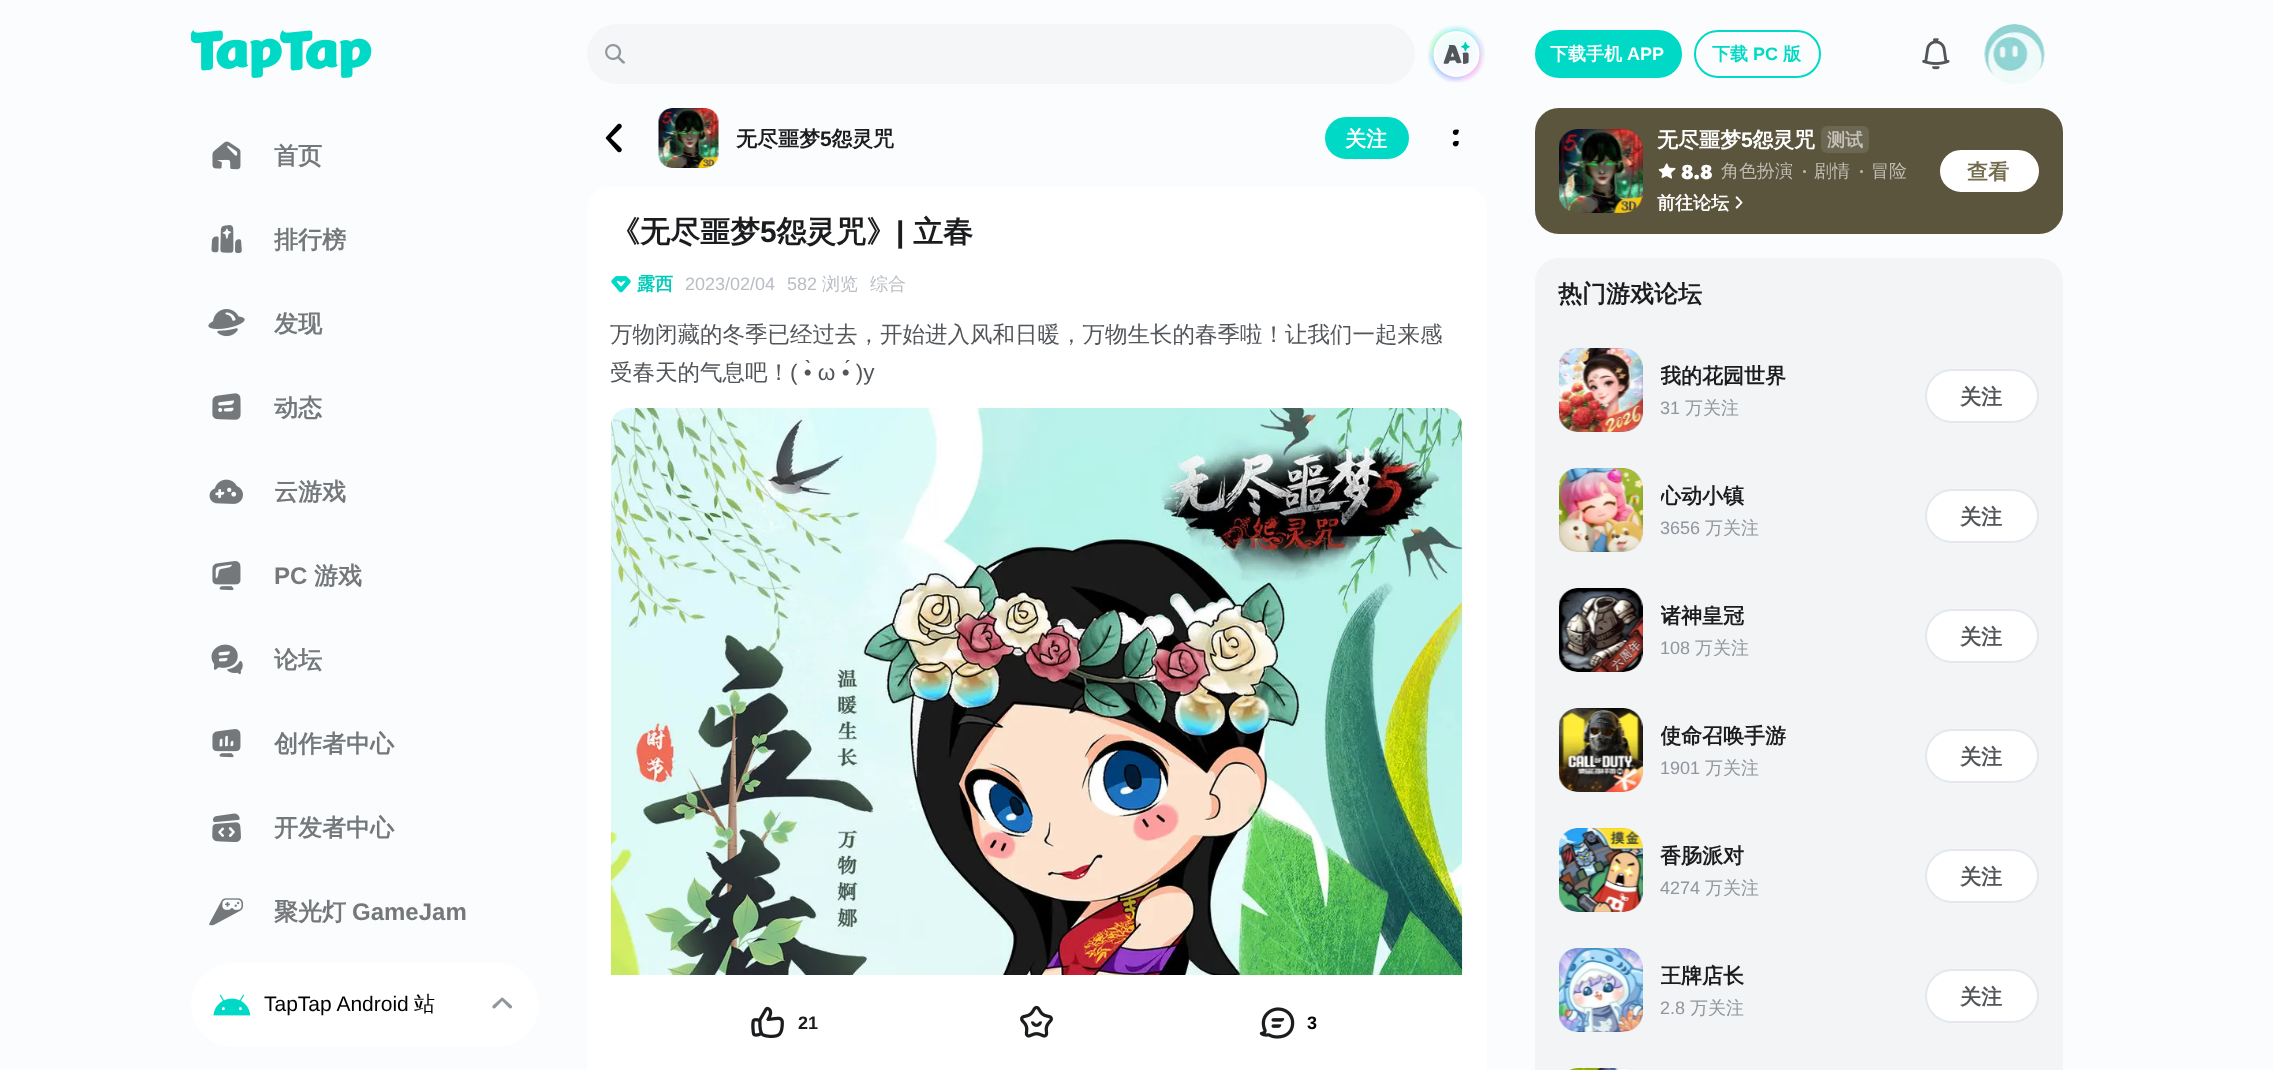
<?xml version="1.0" encoding="UTF-8"?>
<svg xmlns="http://www.w3.org/2000/svg" width="2273" height="1070">
    <defs>
        <clipPath id="clip1"><rect x="1661" y="359" width="252" height="33"/></clipPath>
        <clipPath id="clip2"><rect x="1661" y="479" width="252" height="33"/></clipPath>
        <clipPath id="clip3"><rect x="1661" y="599" width="252" height="33"/></clipPath>
        <clipPath id="clip4"><rect x="1661" y="719" width="252" height="33"/></clipPath>
        <clipPath id="clip5"><rect x="1661" y="959" width="252" height="33"/></clipPath>
    </defs>
    <rect width="100%" height="100%" fill="#FAFCFD"/>
    <image x="191" y="30" width="181" height="48" href="img_01.png"/>
    <image x="212" y="141" width="29" height="29" href="img_02.png"/>
    <text x="274" y="164" font-family="WenQuanYi Zen Hei" font-size="24" font-weight="700" fill="#75787B">首页</text>
    <image x="211" y="225" width="31" height="29" href="img_03.png"/>
    <text x="274" y="248" font-family="WenQuanYi Zen Hei" font-size="24" font-weight="700" fill="#75787B">排行榜</text>
    <image x="208" y="309" width="37" height="28" href="img_04.png"/>
    <text x="274" y="332" font-family="WenQuanYi Zen Hei" font-size="24" font-weight="700" fill="#75787B">发现</text>
    <image x="212" y="393" width="29" height="27" href="img_05.png"/>
    <text x="274" y="416" font-family="WenQuanYi Zen Hei" font-size="24" font-weight="700" fill="#75787B">动态</text>
    <image x="209" y="479" width="34" height="25" href="img_06.png"/>
    <text x="274" y="500" font-family="WenQuanYi Zen Hei" font-size="24" font-weight="700" fill="#75787B">云游戏</text>
    <image x="212" y="561" width="29" height="30" href="img_07.png"/>
    <text x="274" y="584" font-family="Liberation Sans" font-size="24" font-weight="700" fill="#75787B">PC</text>
    <text x="314" y="584" font-family="WenQuanYi Zen Hei" font-size="24" font-weight="700" fill="#75787B">游戏</text>
    <image x="211" y="644" width="32" height="31" href="img_08.png"/>
    <text x="274" y="668" font-family="WenQuanYi Zen Hei" font-size="24" font-weight="700" fill="#75787B">论坛</text>
    <image x="212" y="729" width="29" height="29" href="img_09.png"/>
    <text x="274" y="752" font-family="WenQuanYi Zen Hei" font-size="24" font-weight="700" fill="#75787B">创作者中心</text>
    <image x="212" y="813" width="29" height="30" href="img_10.png"/>
    <text x="274" y="836" font-family="WenQuanYi Zen Hei" font-size="24" font-weight="700" fill="#75787B">开发者中心</text>
    <image x="209" y="898" width="34" height="28" href="img_11.png"/>
    <text x="274" y="920" font-family="WenQuanYi Zen Hei" font-size="24" font-weight="700" fill="#75787B">聚光灯</text>
    <text x="352" y="920" font-family="Liberation Sans" font-size="24" font-weight="700" fill="#75787B">GameJam</text>
    <rect x="191" y="963" width="348" height="84" rx="42" fill="#FFFFFF"/>
    <image x="213" y="994" width="38" height="22" href="img_12.png"/>
    <text x="264" y="1011" font-family="Liberation Sans" font-size="21" fill="#000000">TapTap Android</text>
    <text x="414" y="1011" font-family="WenQuanYi Zen Hei" font-size="21" font-weight="500" fill="#000000">站</text>
    <image x="492" y="997" width="21" height="12" href="img_13.png"/>
    <rect x="587" y="24" width="828" height="60" rx="30" fill="#F4F6F8"/>
    <image x="605" y="44" width="21" height="20" href="img_14.png"/>
    <image x="1427" y="25" width="58" height="58" href="img_15.png"/>
    <image x="605" y="123" width="17" height="30" href="img_16.png"/>
    <image x="658" y="108" width="61" height="60" href="img_17.png"/>
    <text x="736" y="146" font-family="WenQuanYi Zen Hei" font-size="21" font-weight="700" fill="#1A1C1E">无尽噩梦</text>
    <text x="820" y="146" font-family="Liberation Sans" font-size="21" font-weight="700" fill="#1A1C1E">5</text>
    <text x="831" y="146" font-family="WenQuanYi Zen Hei" font-size="21" font-weight="700" fill="#1A1C1E">怨灵咒</text>
    <rect x="1326" y="118" width="82" height="40" rx="20" fill="#00D9C5" stroke="#00D9C5" stroke-width="2"/>
    <text x="1345" y="146" font-family="WenQuanYi Zen Hei" font-size="21" font-weight="700" fill="#FFFFFF">关注</text>
    <image x="1452" y="129" width="7" height="18" href="img_18.png"/>
    <rect x="587" y="186" width="900" height="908" rx="24" fill="#FFFFFF"/>
    <text x="610" y="242" font-family="WenQuanYi Zen Hei" font-size="30" font-weight="700" fill="#1A1C1E">《无尽噩梦</text>
    <text x="760" y="242" font-family="Liberation Sans" font-size="30" font-weight="700" fill="#1A1C1E">5</text>
    <text x="776" y="242" font-family="WenQuanYi Zen Hei" font-size="30" font-weight="700" fill="#1A1C1E">怨灵咒》</text>
    <text x="896" y="242" font-family="Liberation Sans" font-size="30" font-weight="700" fill="#1A1C1E">|</text>
    <text x="913" y="242" font-family="WenQuanYi Zen Hei" font-size="30" font-weight="700" fill="#1A1C1E">立春</text>
    <image x="611" y="276" width="20" height="17" href="img_19.png"/>
    <text x="637" y="290" font-family="WenQuanYi Zen Hei" font-size="18" font-weight="700" fill="#00CDBA">露西</text>
    <text x="685" y="290" font-family="Liberation Sans" font-size="18" fill="#B8BEC4">2023/02/04</text>
    <text x="787" y="290" font-family="Liberation Sans" font-size="18" fill="#B8BEC4">582</text>
    <text x="822" y="290" font-family="WenQuanYi Zen Hei" font-size="18" font-weight="500" fill="#B8BEC4">浏览</text>
    <text x="870" y="290" font-family="WenQuanYi Zen Hei" font-size="18" font-weight="500" fill="#B8BEC4">综合</text>
    <text font-family="WenQuanYi Zen Hei" font-size="22.5" font-weight="500" fill="#52565A">
        <tspan x="610" y="342">万物闭藏的冬季已经过去，开始进入风和日暖，万物生长的春季啦！让我们一起来感</tspan>
        <tspan x="610" y="380">受春天的气息吧！</tspan>
    </text>
    <text x="790" y="380" font-family="Liberation Sans" font-size="22.5" fill="#52565A">( •̀ ω •́ )y</text>
    <image x="610" y="408" width="853" height="567" href="img_20.png"/>
    <image x="751" y="1006" width="33" height="32" href="img_21.png"/>
    <text x="798" y="1029" font-family="Liberation Sans" font-size="18" font-weight="700" fill="#1A1C1E">21</text>
    <image x="1020" y="1005" width="33" height="33" href="img_22.png"/>
    <image x="1259" y="1007" width="36" height="32" href="img_23.png"/>
    <text x="1307" y="1029" font-family="Liberation Sans" font-size="18" font-weight="700" fill="#000000">3</text>
    <rect x="1536" y="31" width="145" height="46" rx="23" fill="#00D9C5" stroke="#00D9C5" stroke-width="2"/>
    <text x="1550" y="60" font-family="WenQuanYi Zen Hei" font-size="18" font-weight="700" fill="#FFFFFF">下载手机</text>
    <text x="1627" y="60" font-family="Liberation Sans" font-size="18" font-weight="700" fill="#FFFFFF">APP</text>
    <rect x="1695" y="31" width="125" height="46" rx="23" fill="none" stroke="#00D9C5" stroke-width="2"/>
    <text x="1712" y="60" font-family="WenQuanYi Zen Hei" font-size="18" font-weight="700" fill="#00D9C5">下载</text>
    <text x="1753" y="60" font-family="Liberation Sans" font-size="18" font-weight="700" fill="#00D9C5">PC</text>
    <text x="1783" y="60" font-family="WenQuanYi Zen Hei" font-size="18" font-weight="700" fill="#00D9C5">版</text>
    <image x="1922" y="38" width="28" height="32" href="img_24.png"/>
    <image x="1984" y="24" width="61" height="60" href="img_25.png"/>
    <rect x="1535" y="108" width="528" height="126" rx="24" fill="#736B4E"/>
    <rect x="1535" y="108" width="528" height="126" rx="24" fill="#000000" fill-opacity="0.2"/>
    <image x="1559" y="129" width="84" height="84" href="img_26.png"/>
    <text x="1657" y="147" font-family="WenQuanYi Zen Hei" font-size="21" font-weight="700" fill="#FFFFFF">无尽噩梦</text>
    <text x="1741" y="147" font-family="Liberation Sans" font-size="21" font-weight="700" fill="#FFFFFF">5</text>
    <text x="1752" y="147" font-family="WenQuanYi Zen Hei" font-size="21" font-weight="700" fill="#FFFFFF">怨灵咒</text>
    <rect x="1821" y="126" width="48" height="27" rx="6" fill="#6C6752"/>
    <text x="1827" y="146" font-family="WenQuanYi Zen Hei" font-size="18" font-weight="700" fill="#C4C2BA">测试</text>
    <image x="1658" y="163" width="18" height="16" href="img_27.png"/>
    <text x="1681" y="179" font-family="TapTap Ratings" font-size="21" font-weight="900" fill="#FFFFFF">8.8</text>
    <text x="1721" y="177" font-family="WenQuanYi Zen Hei" font-size="18" font-weight="500" fill="#BEBBB2">角色扮演</text>
    <circle cx="1804.5" cy="171.5" r="1.5" fill="#BEBBB2"/>
    <text x="1814" y="177" font-family="WenQuanYi Zen Hei" font-size="18" font-weight="500" fill="#BEBBB2">剧情</text>
    <circle cx="1861.5" cy="171.5" r="1.5" fill="#BEBBB2"/>
    <text x="1871" y="177" font-family="WenQuanYi Zen Hei" font-size="18" font-weight="500" fill="#BEBBB2">冒险</text>
    <text x="1657" y="209" font-family="WenQuanYi Zen Hei" font-size="18" font-weight="700" fill="#FFFFFF">前往论坛</text>
    <image x="1735" y="196" width="8" height="13" href="img_28.png"/>
    <rect x="1941" y="151" width="97" height="40" rx="20" fill="#FFFFFF" stroke="#FFFFFF" stroke-width="2"/>
    <text x="1967" y="179" font-family="WenQuanYi Zen Hei" font-size="21" font-weight="700" fill="#736B4E">查看</text>
    <rect x="1535" y="258" width="528" height="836" rx="24" fill="#F2F4F6"/>
    <text x="1558" y="302" font-family="WenQuanYi Zen Hei" font-size="24" font-weight="700" fill="#1A1C1E">热门游戏论坛</text>
    <image x="1559" y="348" width="84" height="84" href="img_29.png"/>
    <g clip-path="url(#clip1)">
        <text x="1660" y="383" font-family="WenQuanYi Zen Hei" font-size="21" font-weight="700" fill="#1A1C1E">我的花园世界</text>
    </g>
    <text x="1660" y="414" font-family="Liberation Sans" font-size="18" fill="#90969C">31</text>
    <text x="1685" y="414" font-family="WenQuanYi Zen Hei" font-size="18" font-weight="500" fill="#90969C">万关注</text>
    <rect x="1926" y="370" width="112" height="52" rx="26" fill="#FFFFFF" stroke="#E4E8EC" stroke-width="2"/>
    <text x="1960" y="404" font-family="WenQuanYi Zen Hei" font-size="21" font-weight="700" fill="#52565A">关注</text>
    <image x="1559" y="468" width="84" height="84" href="img_30.png"/>
    <g clip-path="url(#clip2)">
        <text x="1660" y="503" font-family="WenQuanYi Zen Hei" font-size="21" font-weight="700" fill="#1A1C1E">心动小镇</text>
    </g>
    <text x="1660" y="534" font-family="Liberation Sans" font-size="18" fill="#90969C">3656</text>
    <text x="1705" y="534" font-family="WenQuanYi Zen Hei" font-size="18" font-weight="500" fill="#90969C">万关注</text>
    <rect x="1926" y="490" width="112" height="52" rx="26" fill="#FFFFFF" stroke="#E4E8EC" stroke-width="2"/>
    <text x="1960" y="524" font-family="WenQuanYi Zen Hei" font-size="21" font-weight="700" fill="#52565A">关注</text>
    <image x="1559" y="588" width="84" height="84" href="img_31.png"/>
    <g clip-path="url(#clip3)">
        <text x="1660" y="623" font-family="WenQuanYi Zen Hei" font-size="21" font-weight="700" fill="#1A1C1E">诸神皇冠</text>
    </g>
    <text x="1660" y="654" font-family="Liberation Sans" font-size="18" fill="#90969C">108</text>
    <text x="1695" y="654" font-family="WenQuanYi Zen Hei" font-size="18" font-weight="500" fill="#90969C">万关注</text>
    <rect x="1926" y="610" width="112" height="52" rx="26" fill="#FFFFFF" stroke="#E4E8EC" stroke-width="2"/>
    <text x="1960" y="644" font-family="WenQuanYi Zen Hei" font-size="21" font-weight="700" fill="#52565A">关注</text>
    <image x="1559" y="708" width="84" height="84" href="img_32.png"/>
    <g clip-path="url(#clip4)">
        <text x="1660" y="743" font-family="WenQuanYi Zen Hei" font-size="21" font-weight="700" fill="#1A1C1E">使命召唤手游</text>
    </g>
    <text x="1660" y="774" font-family="Liberation Sans" font-size="18" fill="#90969C">1901</text>
    <text x="1705" y="774" font-family="WenQuanYi Zen Hei" font-size="18" font-weight="500" fill="#90969C">万关注</text>
    <rect x="1926" y="730" width="112" height="52" rx="26" fill="#FFFFFF" stroke="#E4E8EC" stroke-width="2"/>
    <text x="1960" y="764" font-family="WenQuanYi Zen Hei" font-size="21" font-weight="700" fill="#52565A">关注</text>
    <image x="1559" y="828" width="84" height="84" href="img_33.png"/>
    <text x="1660" y="863" font-family="WenQuanYi Zen Hei" font-size="21" font-weight="700" fill="#1A1C1E">香肠派对</text>
    <text x="1660" y="894" font-family="Liberation Sans" font-size="18" fill="#90969C">4274</text>
    <text x="1705" y="894" font-family="WenQuanYi Zen Hei" font-size="18" font-weight="500" fill="#90969C">万关注</text>
    <rect x="1926" y="850" width="112" height="52" rx="26" fill="#FFFFFF" stroke="#E4E8EC" stroke-width="2"/>
    <text x="1960" y="884" font-family="WenQuanYi Zen Hei" font-size="21" font-weight="700" fill="#52565A">关注</text>
    <image x="1559" y="948" width="84" height="84" href="img_34.png"/>
    <g clip-path="url(#clip5)">
        <text x="1660" y="983" font-family="WenQuanYi Zen Hei" font-size="21" font-weight="700" fill="#1A1C1E">王牌店长</text>
    </g>
    <text x="1660" y="1014" font-family="Liberation Sans" font-size="18" fill="#90969C">2.8</text>
    <text x="1690" y="1014" font-family="WenQuanYi Zen Hei" font-size="18" font-weight="500" fill="#90969C">万关注</text>
    <rect x="1926" y="970" width="112" height="52" rx="26" fill="#FFFFFF" stroke="#E4E8EC" stroke-width="2"/>
    <text x="1960" y="1004" font-family="WenQuanYi Zen Hei" font-size="21" font-weight="700" fill="#52565A">关注</text>
    <image x="1569" y="1068" width="60" height="2" href="img_35.png"/>
</svg>
